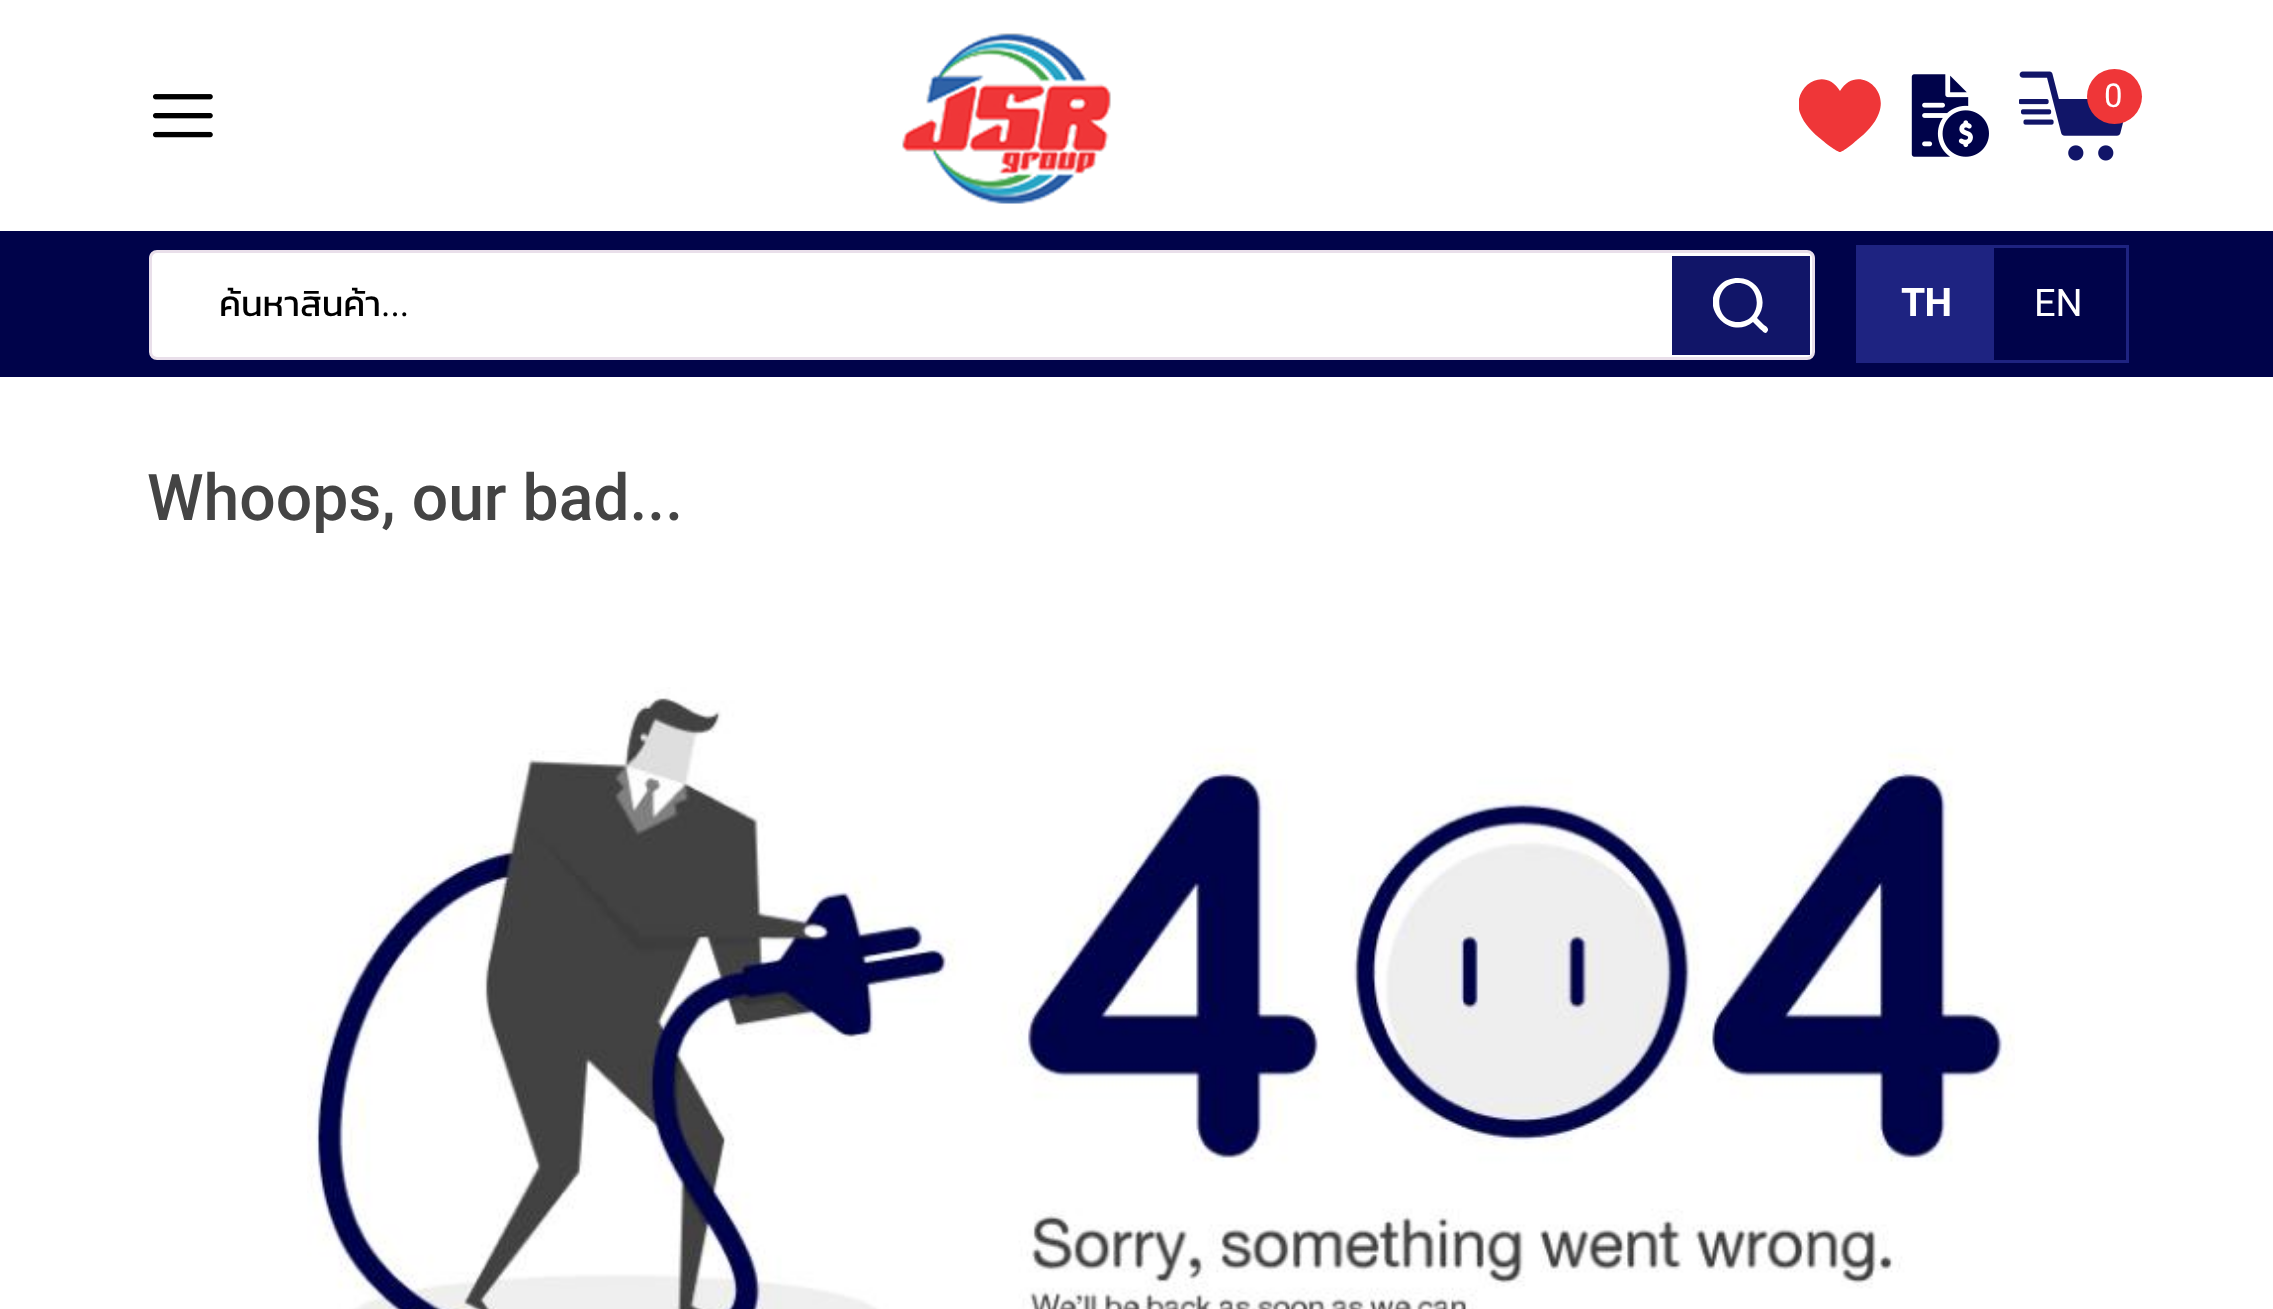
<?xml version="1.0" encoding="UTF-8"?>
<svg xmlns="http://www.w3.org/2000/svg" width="2273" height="1309">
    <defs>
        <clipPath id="clip1"><rect x="1799" y="74" width="82" height="83"/></clipPath>
        <clipPath id="clip2"><rect x="220" y="278" width="1524" height="52"/></clipPath>
        <clipPath id="clip3"><rect x="1713" y="278" width="55" height="55"/></clipPath>
    </defs>
    <rect width="100%" height="100%" fill="#FFFFFF"/>
    <image x="152" y="94" width="61" height="44" href="img_01.png"/>
    <image x="902" y="33" width="209" height="171" href="img_02.png"/>
    <g clip-path="url(#clip1)">
        <path d="M 1840 152 C 1837 152 1824 142 1822 140 C 1813 133 1804 124 1800 113 C 1791 86 1825 65 1840 91 C 1855 65 1889 86 1879 113 C 1875 124 1866 133 1857 140 C 1855 142 1843 152 1840 152 Z" fill="#EF3638"/>
    </g>
    <image x="1911" y="74" width="78" height="83" href="img_03.png"/>
    <image x="2019" y="71" width="105" height="90" href="img_04.png"/>
    <circle cx="2114.5" cy="96.5" r="27.5" fill="#EF3638"/>
    <text x="2104" y="107" font-family="Roboto" font-size="33" fill="#FFFFFF">0</text>
    <rect x="0" y="231" width="2273" height="146" fill="#00034A"/>
    <rect x="150.5" y="251.5" width="1663" height="107" rx="6.5" fill="#FFFFFF" stroke="#E9DFEA" stroke-width="3"/>
    <g clip-path="url(#clip2)">
        <text x="219" y="316" font-family="Kanit" font-size="35.75" fill="#000000">ค้นหาสินค้า</text>
    </g>
    <text x="381" y="316" font-family="Roboto" font-size="35.75" fill="#000000">...</text>
    <rect x="1672" y="256" width="138" height="99" fill="#111568"/>
    <g clip-path="url(#clip3)">
        <path d="M 1738 278 C 1731 278 1725 280 1720 285 C 1698 307 1730 341 1753 322 L 1760 329 C 1762 330 1765 335 1767 332 C 1770 329 1766 326 1764 325 L 1757 318 C 1770 302 1759 278 1738 278 Z M 1738 283 C 1763 283 1763 322 1738 322 C 1713 322 1713 283 1738 283 Z" fill="#FFFFFF"/>
    </g>
    <rect x="1857.5" y="246.5" width="270" height="115" fill="none" stroke="#1E2381" stroke-width="3"/>
    <rect x="1859" y="248" width="135" height="112" fill="#1E2381"/>
    <text x="1901" y="316" font-family="Roboto" font-size="38" font-weight="700" fill="#FFFFFF">TH</text>
    <text x="2034" y="316" font-family="Roboto" font-size="38" fill="#FFFFFF">EN</text>
    <text x="147" y="520" font-family="Roboto" font-size="64.25" font-weight="500" fill="#444444">Whoops, our bad...</text>
    <image x="307" y="687" width="1708" height="622" href="img_05.png"/>
</svg>
